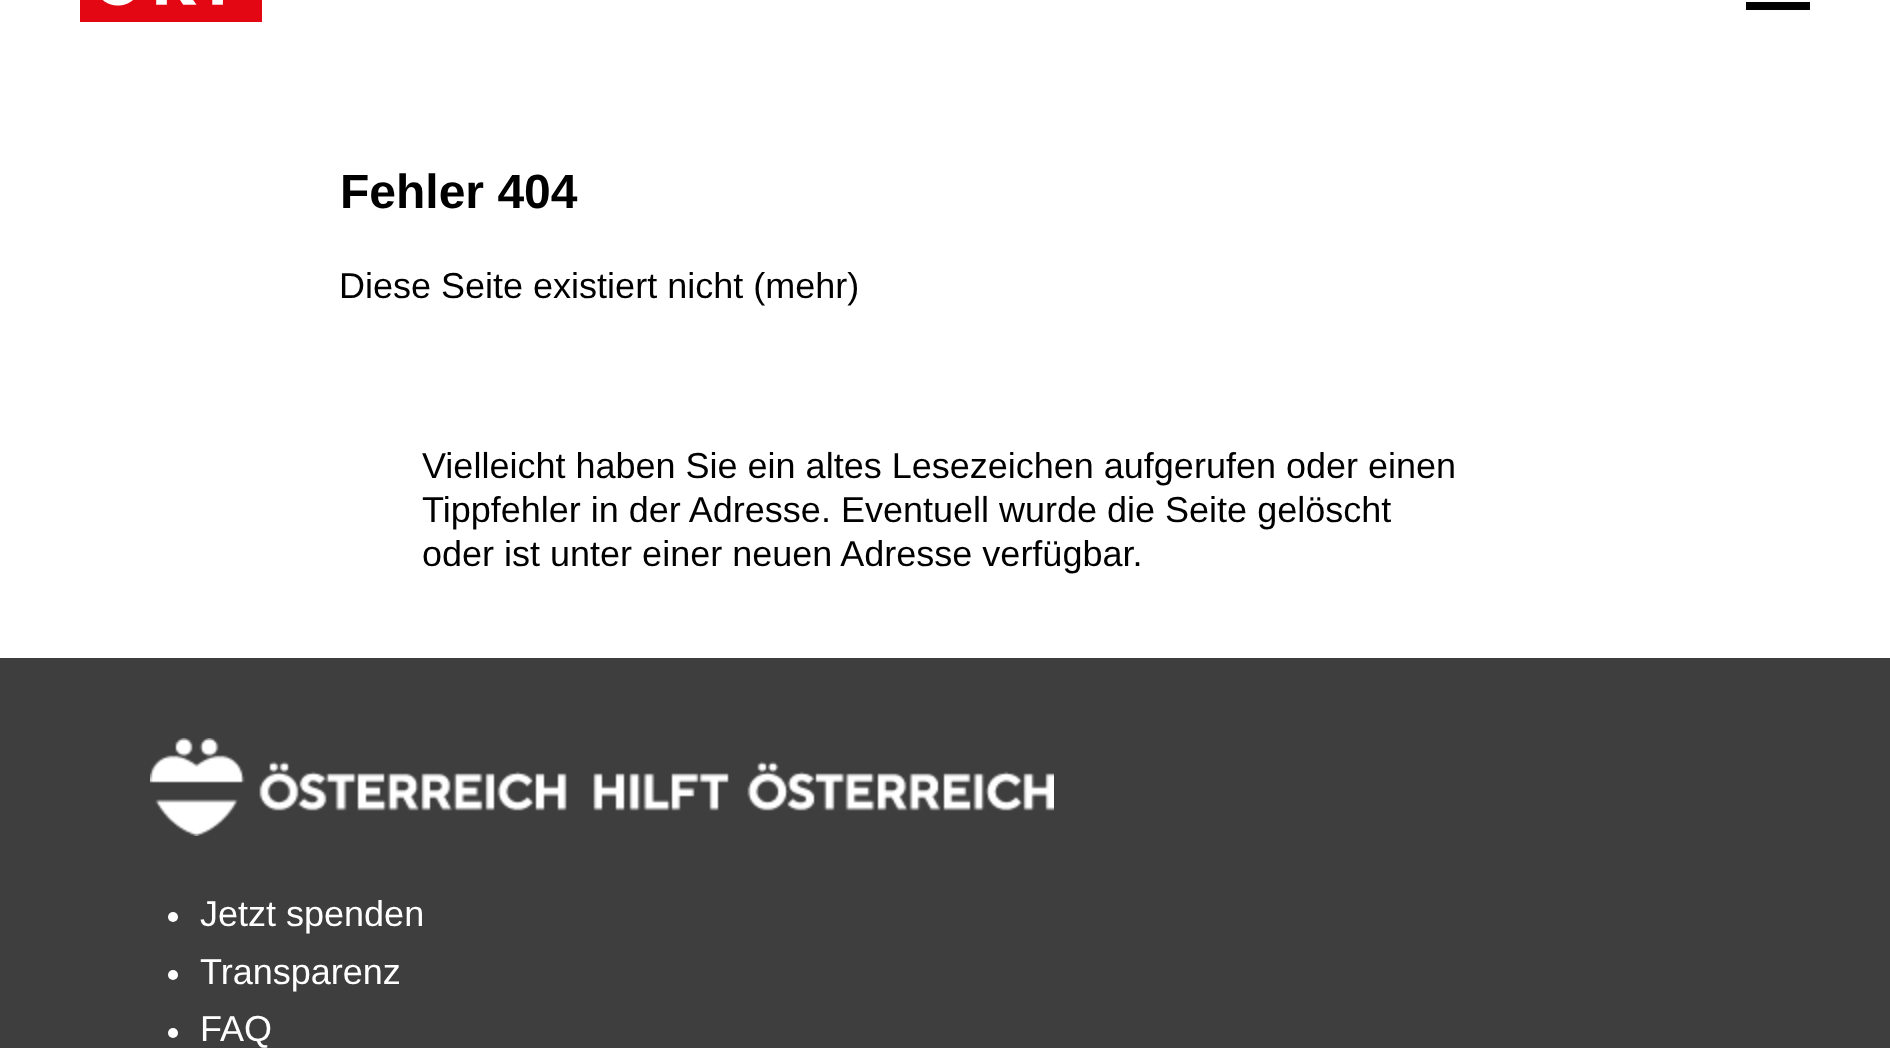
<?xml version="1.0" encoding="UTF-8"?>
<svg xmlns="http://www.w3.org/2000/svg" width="1890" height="1048">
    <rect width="100%" height="100%" fill="#FFFFFF"/>
    <image x="80" y="0" width="182" height="22" href="img_01.png"/>
    <rect x="1746" y="2" width="64" height="8" fill="#000000"/>
    <text x="340" y="208" font-family="Liberation Sans" font-size="48" font-weight="700" fill="#000000">Fehler 404</text>
    <text x="339" y="298" font-family="Liberation Sans" font-size="36" fill="#000000">Diese Seite existiert nicht (mehr)</text>
    <text font-family="Liberation Sans" font-size="36" fill="#000000">
        <tspan x="422" y="478">Vielleicht haben Sie ein altes Lesezeichen aufgerufen oder einen</tspan>
        <tspan x="422" y="522">Tippfehler in der Adresse. Eventuell wurde die Seite gelöscht</tspan>
        <tspan x="422" y="566">oder ist unter einer neuen Adresse verfügbar.</tspan>
    </text>
    <rect x="0" y="658" width="1890" height="390" fill="#3E3E3E"/>
    <image x="150" y="738" width="904" height="98" href="img_02.png"/>
    <circle cx="173" cy="917" r="5" fill="#FFFFFF"/>
    <text x="200" y="926" font-family="Liberation Sans" font-size="36" fill="#FFFFFF">Jetzt spenden</text>
    <circle cx="173" cy="975" r="5" fill="#FFFFFF"/>
    <text x="200" y="984" font-family="Liberation Sans" font-size="36" fill="#FFFFFF">Transparenz</text>
    <circle cx="173" cy="1033" r="5" fill="#FFFFFF"/>
    <text x="200" y="1041" font-family="Liberation Sans" font-size="36" fill="#FFFFFF">FAQ</text>
</svg>
